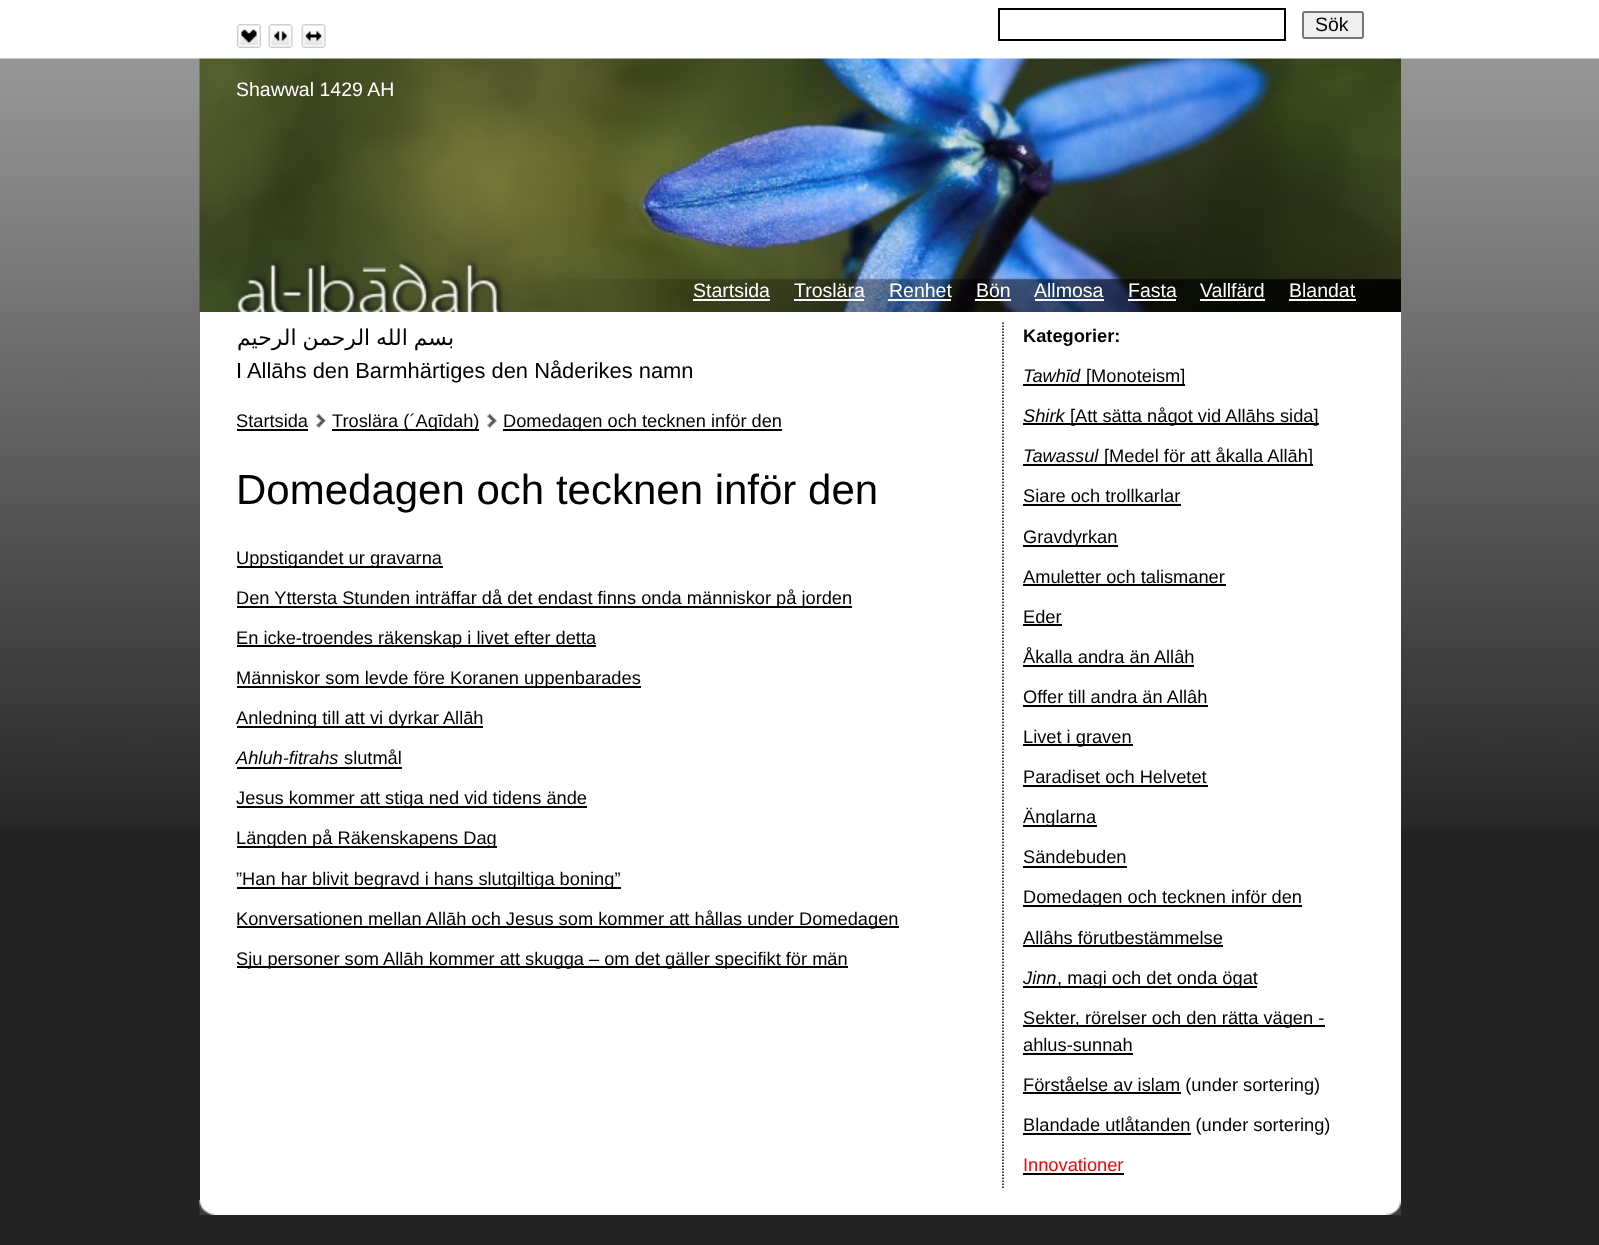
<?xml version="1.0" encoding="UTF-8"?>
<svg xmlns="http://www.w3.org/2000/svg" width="1599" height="1245">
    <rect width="100%" height="100%" fill="#232323"/>
    <image x="0" y="0" width="1599" height="828" href="img_01.png"/>
    <rect x="200" y="58" width="1201" height="1157" fill="#FFFFFF"/>
    <image x="237" y="24" width="24" height="24" href="img_02.png"/>
    <image x="268" y="24" width="25" height="24" href="img_03.png"/>
    <image x="301" y="24" width="25" height="24" href="img_04.png"/>
    <rect x="999" y="9" width="286" height="31" fill="none" stroke="#000000" stroke-width="2"/>
    <rect x="1303" y="12" width="60" height="26" rx="2" fill="#EFEFEF" stroke="#767676" stroke-width="2"/>
    <text x="1315" y="31" font-family="Liberation Sans" font-size="19.5" fill="#000000">Sök</text>
    <image x="199" y="58" width="1202" height="254" href="img_05.png"/>
    <text x="236" y="96" font-family="Liberation Sans" font-size="19.5" fill="#FFFFFF">Shawwal 1429 AH</text>
    <text x="693" y="297" font-family="Liberation Sans" font-size="19.5" fill="#FFFFFF">Startsida</text>
    <rect x="693" y="299" width="77" height="2" fill="#FFFFFF"/>
    <text x="794" y="297" font-family="Liberation Sans" font-size="19.5" fill="#FFFFFF">Troslära</text>
    <rect x="794" y="299" width="70" height="2" fill="#FFFFFF"/>
    <text x="889" y="297" font-family="Liberation Sans" font-size="19.5" fill="#FFFFFF">Renhet</text>
    <rect x="888" y="299" width="63" height="2" fill="#FFFFFF"/>
    <text x="976" y="297" font-family="Liberation Sans" font-size="19.5" fill="#FFFFFF">Bön</text>
    <rect x="975" y="299" width="36" height="2" fill="#FFFFFF"/>
    <text x="1034" y="297" font-family="Liberation Sans" font-size="19.5" fill="#FFFFFF">Allmosa</text>
    <rect x="1035" y="299" width="69" height="2" fill="#FFFFFF"/>
    <text x="1128" y="297" font-family="Liberation Sans" font-size="19.5" fill="#FFFFFF">Fasta</text>
    <rect x="1128" y="299" width="48" height="2" fill="#FFFFFF"/>
    <text x="1200" y="297" font-family="Liberation Sans" font-size="19.5" fill="#FFFFFF">Vallfärd</text>
    <rect x="1200" y="299" width="65" height="2" fill="#FFFFFF"/>
    <text x="1289" y="297" font-family="Liberation Sans" font-size="19.5" fill="#FFFFFF">Blandat</text>
    <rect x="1289" y="299" width="67" height="2" fill="#FFFFFF"/>
    <text x="454" y="345" word-spacing="-1" font-family="DejaVu Sans" font-size="21.9" direction="rtl" fill="#000000">بسم الله الرحمن الرحيم</text>
    <text x="236" y="378" font-family="Liberation Sans" font-size="21.9" fill="#000000">I Allāhs den Barmhärtiges den Nåderikes namn</text>
    <text x="236" y="427" font-family="Liberation Sans" font-size="18.25" fill="#000000">Startsida</text>
    <rect x="237" y="429" width="71" height="2" fill="#000000"/>
    <image x="316" y="414" width="10" height="14" href="img_06.png"/>
    <rect x="332" y="429" width="147" height="2" fill="#000000"/>
    <text x="332" y="427" font-family="Liberation Sans" font-size="18.25" fill="#000000">Troslära (´Aqīdah)</text>
    <image x="487" y="414" width="10" height="14" href="img_06.png"/>
    <rect x="503" y="429" width="279" height="2" fill="#000000"/>
    <text x="503" y="427" font-family="Liberation Sans" font-size="18.25" fill="#000000">Domedagen och tecknen inför den</text>
    <text x="236" y="504" font-family="Liberation Sans" font-size="42" fill="#000000">Domedagen och tecknen inför den</text>
    <rect x="237" y="566" width="206" height="2" fill="#000000"/>
    <text x="236" y="564" font-family="Liberation Sans" font-size="18.25" fill="#000000">Uppstigandet ur gravarna</text>
    <rect x="237" y="606" width="615" height="2" fill="#000000"/>
    <text x="236" y="604" font-family="Liberation Sans" font-size="18.25" fill="#000000">Den Yttersta Stunden inträffar då det endast finns onda människor på jorden</text>
    <rect x="237" y="645" width="359" height="2" fill="#000000"/>
    <text x="236" y="644" font-family="Liberation Sans" font-size="18.25" fill="#000000">En icke-troendes räkenskap i livet efter detta</text>
    <rect x="237" y="686" width="404" height="2" fill="#000000"/>
    <text x="236" y="684" font-family="Liberation Sans" font-size="18.25" fill="#000000">Människor som levde före Koranen uppenbarades</text>
    <rect x="237" y="726" width="246" height="2" fill="#000000"/>
    <text x="236" y="724" font-family="Liberation Sans" font-size="18.25" fill="#000000">Anledning till att vi dyrkar Allāh</text>
    <text x="236" y="764" font-family="Liberation Sans" font-size="18.25" font-style="italic" fill="#000000">Ahluh-fitrahs</text>
    <rect x="237" y="767" width="165" height="2" fill="#000000"/>
    <text x="344" y="764" font-family="Liberation Sans" font-size="18.25" fill="#000000">slutmål</text>
    <rect x="237" y="806" width="350" height="2" fill="#000000"/>
    <text x="236" y="804" font-family="Liberation Sans" font-size="18.25" fill="#000000">Jesus kommer att stiga ned vid tidens ände</text>
    <rect x="237" y="846" width="260" height="2" fill="#000000"/>
    <text x="236" y="844" font-family="Liberation Sans" font-size="18.25" fill="#000000">Längden på Räkenskapens Dag</text>
    <rect x="237" y="887" width="384" height="2" fill="#000000"/>
    <text x="236" y="885" font-family="Liberation Sans" font-size="18.25" fill="#000000">”Han har blivit begravd i hans slutgiltiga boning”</text>
    <rect x="237" y="926" width="662" height="2" fill="#000000"/>
    <text x="236" y="925" font-family="Liberation Sans" font-size="18.25" fill="#000000">Konversationen mellan Allāh och Jesus som kommer att hållas under Domedagen</text>
    <rect x="237" y="966" width="611" height="2" fill="#000000"/>
    <text x="236" y="965" font-family="Liberation Sans" font-size="18.25" fill="#000000">Sju personer som Allāh kommer att skugga – om det gäller specifikt för män</text>
    <path d="M 1003 322.5 V 1188" fill="none" stroke="#000000" stroke-width="1.5" stroke-dasharray="1.5 1.5"/>
    <text x="1023" y="342" font-family="Liberation Sans" font-size="18.25" font-weight="700" fill="#000000">Kategorier:</text>
    <text x="1023" y="382" font-family="Liberation Sans" font-size="18.25" font-style="italic" fill="#000000">Tawhīd</text>
    <rect x="1023" y="384" width="162" height="2" fill="#000000"/>
    <text x="1086" y="382" font-family="Liberation Sans" font-size="18.25" fill="#000000">[Monoteism]</text>
    <text x="1023" y="422" font-family="Liberation Sans" font-size="18.25" font-style="italic" fill="#000000">Shirk</text>
    <rect x="1023" y="423" width="296" height="2" fill="#000000"/>
    <text x="1070" y="422" font-family="Liberation Sans" font-size="18.25" fill="#000000">[Att sätta något vid Allāhs sida]</text>
    <text x="1023" y="462" font-family="Liberation Sans" font-size="18.25" font-style="italic" fill="#000000">Tawassul</text>
    <rect x="1023" y="464" width="290" height="2" fill="#000000"/>
    <text x="1104" y="462" font-family="Liberation Sans" font-size="18.25" fill="#000000">[Medel för att åkalla Allāh]</text>
    <text x="1023" y="502" font-family="Liberation Sans" font-size="18.25" fill="#000000">Siare och trollkarlar</text>
    <rect x="1023" y="504" width="158" height="2" fill="#000000"/>
    <rect x="1023" y="545" width="95" height="2" fill="#000000"/>
    <text x="1023" y="543" font-family="Liberation Sans" font-size="18.25" fill="#000000">Gravdyrkan</text>
    <text x="1023" y="583" font-family="Liberation Sans" font-size="18.25" fill="#000000">Amuletter och talismaner</text>
    <rect x="1023" y="584" width="203" height="2" fill="#000000"/>
    <text x="1023" y="623" font-family="Liberation Sans" font-size="18.25" fill="#000000">Eder</text>
    <rect x="1023" y="624" width="39" height="2" fill="#000000"/>
    <text x="1023" y="663" font-family="Liberation Sans" font-size="18.25" fill="#000000">Åkalla andra än Allâh</text>
    <rect x="1023" y="665" width="171" height="2" fill="#000000"/>
    <text x="1023" y="703" font-family="Liberation Sans" font-size="18.25" fill="#000000">Offer till andra än Allâh</text>
    <rect x="1023" y="705" width="185" height="2" fill="#000000"/>
    <rect x="1023" y="744" width="110" height="2" fill="#000000"/>
    <text x="1023" y="743" font-family="Liberation Sans" font-size="18.25" fill="#000000">Livet i graven</text>
    <text x="1023" y="783" font-family="Liberation Sans" font-size="18.25" fill="#000000">Paradiset och Helvetet</text>
    <rect x="1023" y="785" width="185" height="2" fill="#000000"/>
    <rect x="1023" y="825" width="74" height="2" fill="#000000"/>
    <text x="1023" y="823" font-family="Liberation Sans" font-size="18.25" fill="#000000">Änglarna</text>
    <text x="1023" y="863" font-family="Liberation Sans" font-size="18.25" fill="#000000">Sändebuden</text>
    <rect x="1023" y="866" width="104" height="2" fill="#000000"/>
    <rect x="1023" y="905" width="279" height="2" fill="#000000"/>
    <text x="1023" y="903" font-family="Liberation Sans" font-size="18.25" fill="#000000">Domedagen och tecknen inför den</text>
    <text x="1023" y="944" font-family="Liberation Sans" font-size="18.25" fill="#000000">Allâhs förutbestämmelse</text>
    <rect x="1023" y="945" width="200" height="2" fill="#000000"/>
    <text x="1023" y="984" font-family="Liberation Sans" font-size="18.25" font-style="italic" fill="#000000">Jinn</text>
    <rect x="1023" y="986" width="234" height="2" fill="#000000"/>
    <text x="1057" y="984" font-family="Liberation Sans" font-size="18.25" fill="#000000">, magi och det onda ögat</text>
    <rect x="1023" y="1025" width="302" height="2" fill="#000000"/>
    <text font-family="Liberation Sans" font-size="18.25" fill="#000000">
        <tspan x="1023" y="1024">Sekter, rörelser och den rätta vägen -</tspan>
        <tspan x="1023" y="1051">ahlus-sunnah</tspan>
    </text>
    <rect x="1023" y="1053" width="110" height="2" fill="#000000"/>
    <rect x="1023" y="1092" width="158" height="2" fill="#000000"/>
    <text x="1023" y="1091" font-family="Liberation Sans" font-size="18.25" fill="#000000">Förståelse av islam (under sortering)</text>
    <rect x="1023" y="1133" width="168" height="2" fill="#000000"/>
    <text x="1023" y="1131" font-family="Liberation Sans" font-size="18.25" fill="#000000">Blandade utlåtanden (under sortering)</text>
    <text x="1023" y="1171" font-family="Liberation Sans" font-size="18.25" fill="#FF0000">Innovationer</text>
    <rect x="1023" y="1173" width="101" height="2" fill="#000000"/>
    <image x="1386" y="1200" width="15" height="15" href="img_07.png"/>
    <image x="199" y="1200" width="16" height="15" href="img_08.png"/>
</svg>
